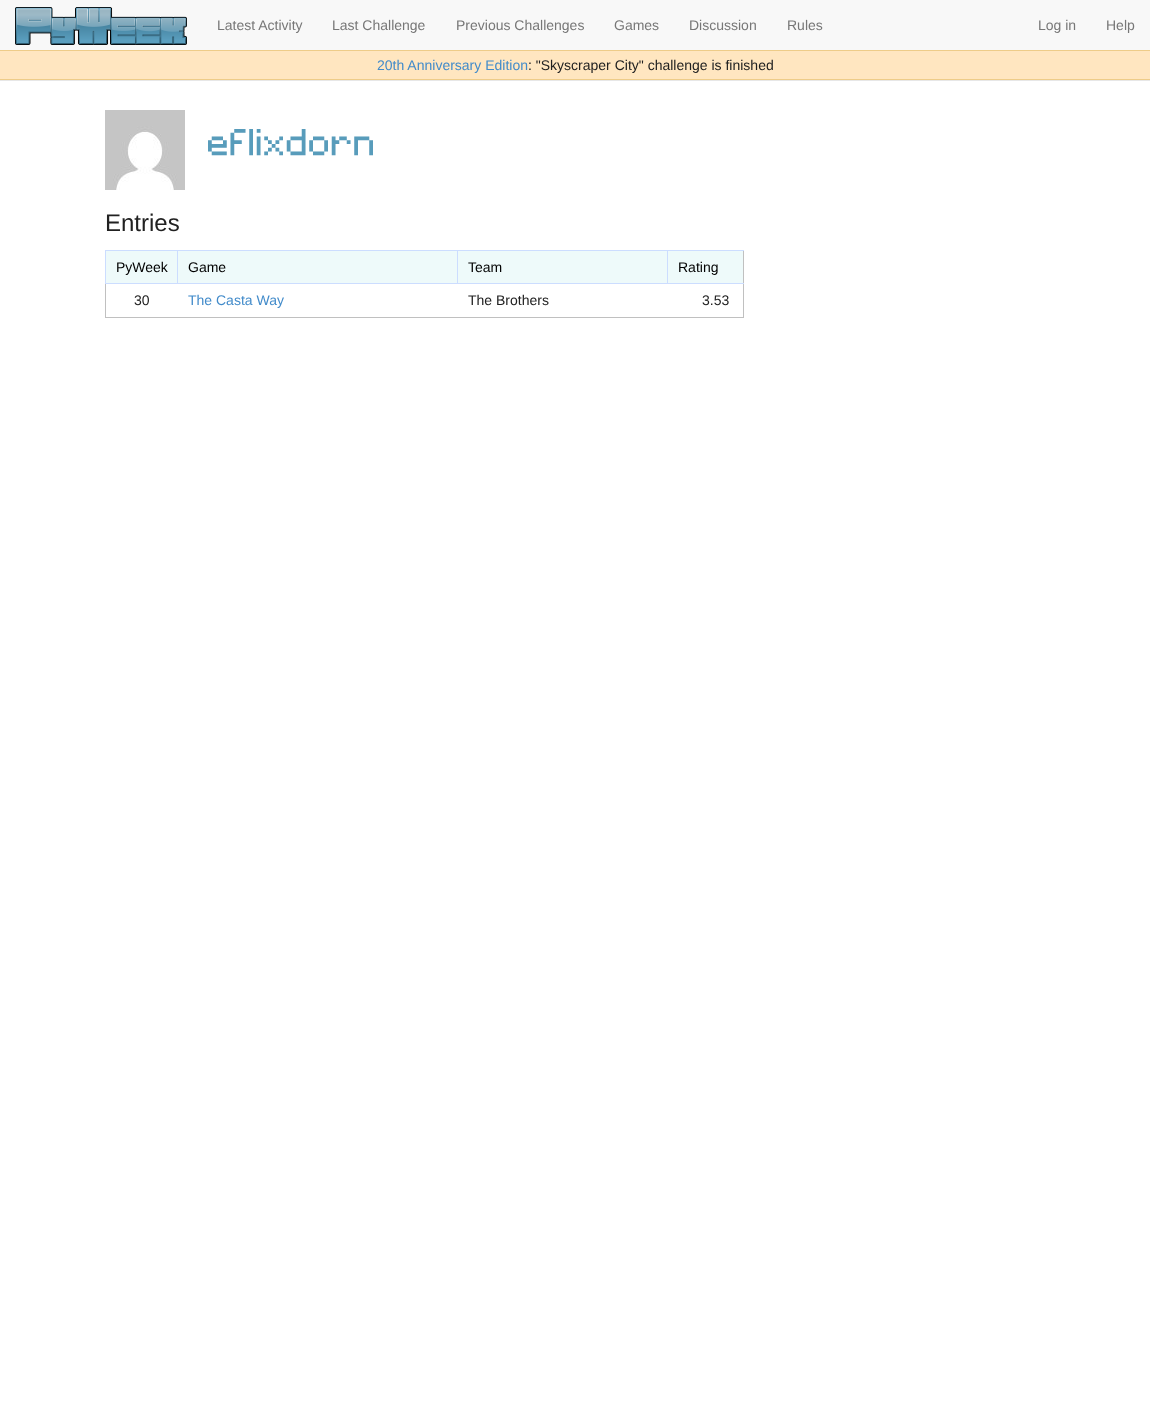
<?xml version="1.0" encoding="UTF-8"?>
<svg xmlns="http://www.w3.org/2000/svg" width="1150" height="1413">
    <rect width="100%" height="100%" fill="#FFFFFF"/>
    <rect x="0" y="0" width="1150" height="50" fill="#F8F8F8"/>
    <rect x="0" y="80" width="1150" height="1" fill="#E7E7E7"/>
    <image x="15" y="7" width="172" height="38" href="img_01.png"/>
    <text x="217" y="30" font-family="Liberation Sans" font-size="14" fill="#777777">Latest Activity</text>
    <text x="332" y="30" font-family="Liberation Sans" font-size="14" fill="#777777">Last Challenge</text>
    <text x="456" y="30" font-family="Liberation Sans" font-size="14" fill="#777777">Previous Challenges</text>
    <text x="614" y="30" font-family="Liberation Sans" font-size="14" fill="#777777">Games</text>
    <text x="689" y="30" font-family="Liberation Sans" font-size="14" fill="#777777">Discussion</text>
    <text x="787" y="30" font-family="Liberation Sans" font-size="14" fill="#777777">Rules</text>
    <text x="1038" y="30" font-family="Liberation Sans" font-size="14" fill="#777777">Log in</text>
    <text x="1106" y="30" font-family="Liberation Sans" font-size="14" fill="#777777">Help</text>
    <rect x="0" y="51" width="1150" height="28" fill="#FFE6C0"/>
    <rect x="0" y="50" width="1150" height="1" fill="#EECC88"/>
    <rect x="0" y="79" width="1150" height="1" fill="#EECC88"/>
    <text x="377" y="70" font-family="Liberation Sans" font-size="14" fill="#428BCA">20th Anniversary Edition</text>
    <text x="528" y="70" font-family="Liberation Sans" font-size="14" fill="#212121">: "Skyscraper City" challenge is finished</text>
    <image x="105" y="110" width="80" height="80" href="img_02.png"/>
    <text x="208" y="159" font-family="'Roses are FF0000'" font-size="30" fill="#589CBB">eflixdorn</text>
    <text x="105" y="231" font-family="Liberation Sans" font-size="24" fill="#212121">Entries</text>
    <rect x="743" y="250" width="1" height="68" fill="#C0C0C0"/>
    <rect x="105" y="317" width="639" height="1" fill="#C0C0C0"/>
    <rect x="105" y="284" width="1" height="34" fill="#C0C0C0"/>
    <rect x="106" y="251" width="71" height="32" fill="#EEFAFA"/>
    <rect x="667" y="250" width="77" height="1" fill="#CCDDFF"/>
    <rect x="667" y="283" width="77" height="1" fill="#CCDDFF"/>
    <rect x="667" y="250" width="1" height="34" fill="#CCDDFF"/>
    <rect x="457" y="250" width="211" height="1" fill="#CCDDFF"/>
    <rect x="457" y="283" width="211" height="1" fill="#CCDDFF"/>
    <rect x="457" y="250" width="1" height="34" fill="#CCDDFF"/>
    <rect x="177" y="250" width="281" height="1" fill="#CCDDFF"/>
    <rect x="177" y="283" width="281" height="1" fill="#CCDDFF"/>
    <rect x="177" y="250" width="1" height="34" fill="#CCDDFF"/>
    <rect x="105" y="250" width="73" height="1" fill="#CCDDFF"/>
    <rect x="105" y="283" width="73" height="1" fill="#CCDDFF"/>
    <rect x="105" y="250" width="1" height="34" fill="#CCDDFF"/>
    <text x="116" y="272" font-family="Liberation Sans" font-size="14" fill="#000000">PyWeek</text>
    <rect x="178" y="251" width="279" height="32" fill="#EEFAFA"/>
    <text x="188" y="272" font-family="Liberation Sans" font-size="14" fill="#000000">Game</text>
    <rect x="458" y="251" width="209" height="32" fill="#EEFAFA"/>
    <text x="468" y="272" font-family="Liberation Sans" font-size="14" fill="#000000">Team</text>
    <rect x="668" y="251" width="75" height="32" fill="#EEFAFA"/>
    <text x="678" y="272" font-family="Liberation Sans" font-size="14" fill="#000000">Rating</text>
    <text x="134" y="305" font-family="Liberation Sans" font-size="14" fill="#212121">30</text>
    <text x="188" y="305" font-family="Liberation Sans" font-size="14" fill="#428BCA">The Casta Way</text>
    <text x="468" y="305" font-family="Liberation Sans" font-size="14" fill="#212121">The Brothers</text>
    <text x="702" y="305" font-family="Liberation Sans" font-size="14" fill="#212121">3.53</text>
</svg>
